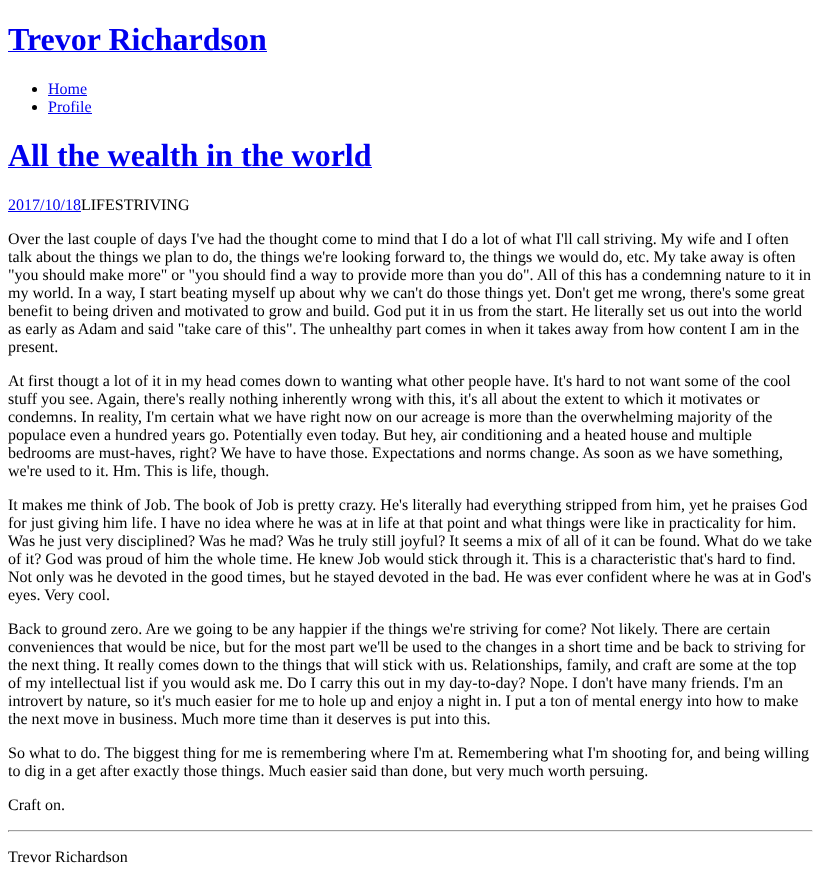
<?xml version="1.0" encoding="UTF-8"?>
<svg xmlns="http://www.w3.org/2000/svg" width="821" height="870">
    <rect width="100%" height="100%" fill="#FFFFFF"/>
    <text x="8" y="50" font-family="Liberation Serif" font-size="32" font-weight="700" fill="#0000EE">Trevor Richardson</text>
    <rect x="8" y="51" width="259" height="1" fill="#0000EE"/>
    <circle cx="34.5" cy="89.5" r="2.5" fill="#000000"/>
    <text x="48" y="94" font-family="Liberation Serif" font-size="16" fill="#0000EE">Home</text>
    <rect x="48" y="95" width="39" height="1" fill="#0000EE"/>
    <circle cx="34.5" cy="107.5" r="2.5" fill="#000000"/>
    <text x="48" y="112" font-family="Liberation Serif" font-size="16" fill="#0000EE">Profile</text>
    <rect x="48" y="113" width="44" height="1" fill="#0000EE"/>
    <text x="8" y="166" font-family="Liberation Serif" font-size="32" font-weight="700" fill="#0000EE">All the wealth in the world</text>
    <rect x="8" y="167" width="364" height="1" fill="#0000EE"/>
    <text x="8" y="210" font-family="Liberation Serif" font-size="16" fill="#0000EE">2017/10/18</text>
    <rect x="8" y="211" width="73" height="1" fill="#0000EE"/>
    <text x="81" y="210" font-family="Liberation Serif" font-size="16" fill="#000000">LIFESTRIVING</text>
    <text font-family="Liberation Serif" font-size="16" fill="#000000">
        <tspan x="8" y="244">Over the last couple of days I've had the thought come to mind that I do a lot of what I'll call striving. My wife and I often</tspan>
        <tspan x="8" y="262">talk about the things we plan to do, the things we're looking forward to, the things we would do, etc. My take away is often</tspan>
        <tspan x="8" y="280">"you should make more" or "you should find a way to provide more than you do". All of this has a condemning nature to it in</tspan>
        <tspan x="8" y="298">my world. In a way, I start beating myself up about why we can't do those things yet. Don't get me wrong, there's some great</tspan>
        <tspan x="8" y="316">benefit to being driven and motivated to grow and build. God put it in us from the start. He literally set us out into the world</tspan>
        <tspan x="8" y="334">as early as Adam and said "take care of this". The unhealthy part comes in when it takes away from how content I am in the</tspan>
        <tspan x="8" y="352">present.</tspan>
    </text>
    <text font-family="Liberation Serif" font-size="16" fill="#000000">
        <tspan x="8" y="386">At first thougt a lot of it in my head comes down to wanting what other people have. It's hard to not want some of the cool</tspan>
        <tspan x="8" y="404">stuff you see. Again, there's really nothing inherently wrong with this, it's all about the extent to which it motivates or</tspan>
        <tspan x="8" y="422">condemns. In reality, I'm certain what we have right now on our acreage is more than the overwhelming majority of the</tspan>
        <tspan x="8" y="440">populace even a hundred years go. Potentially even today. But hey, air conditioning and a heated house and multiple</tspan>
        <tspan x="8" y="458">bedrooms are must-haves, right? We have to have those. Expectations and norms change. As soon as we have something,</tspan>
        <tspan x="8" y="476">we're used to it. Hm. This is life, though.</tspan>
    </text>
    <text font-family="Liberation Serif" font-size="16" fill="#000000">
        <tspan x="8" y="510">It makes me think of Job. The book of Job is pretty crazy. He's literally had everything stripped from him, yet he praises God</tspan>
        <tspan x="8" y="528">for just giving him life. I have no idea where he was at in life at that point and what things were like in practicality for him.</tspan>
        <tspan x="8" y="546">Was he just very disciplined? Was he mad? Was he truly still joyful? It seems a mix of all of it can be found. What do we take</tspan>
        <tspan x="8" y="564">of it? God was proud of him the whole time. He knew Job would stick through it. This is a characteristic that's hard to find.</tspan>
        <tspan x="8" y="582">Not only was he devoted in the good times, but he stayed devoted in the bad. He was ever confident where he was at in God's</tspan>
        <tspan x="8" y="600">eyes. Very cool.</tspan>
    </text>
    <text font-family="Liberation Serif" font-size="16" fill="#000000">
        <tspan x="8" y="634">Back to ground zero. Are we going to be any happier if the things we're striving for come? Not likely. There are certain</tspan>
        <tspan x="8" y="652">conveniences that would be nice, but for the most part we'll be used to the changes in a short time and be back to striving for</tspan>
        <tspan x="8" y="670">the next thing. It really comes down to the things that will stick with us. Relationships, family, and craft are some at the top</tspan>
        <tspan x="8" y="688">of my intellectual list if you would ask me. Do I carry this out in my day-to-day? Nope. I don't have many friends. I'm an</tspan>
        <tspan x="8" y="706">introvert by nature, so it's much easier for me to hole up and enjoy a night in. I put a ton of mental energy into how to make</tspan>
        <tspan x="8" y="724">the next move in business. Much more time than it deserves is put into this.</tspan>
    </text>
    <text font-family="Liberation Serif" font-size="16" fill="#000000">
        <tspan x="8" y="758">So what to do. The biggest thing for me is remembering where I'm at. Remembering what I'm shooting for, and being willing</tspan>
        <tspan x="8" y="776">to dig in a get after exactly those things. Much easier said than done, but very much worth persuing.</tspan>
    </text>
    <text x="8" y="810" font-family="Liberation Serif" font-size="16" fill="#000000">Craft on.</text>
    <rect x="8" y="830" width="805" height="1" fill="#9F9F9F"/>
    <rect x="812" y="830" width="1" height="2" fill="#EEEEEE"/>
    <rect x="8" y="831" width="805" height="1" fill="#EEEEEE"/>
    <rect x="8" y="830" width="1" height="2" fill="#9F9F9F"/>
    <text x="8" y="862" font-family="Liberation Serif" font-size="16" fill="#000000">Trevor Richardson</text>
</svg>
